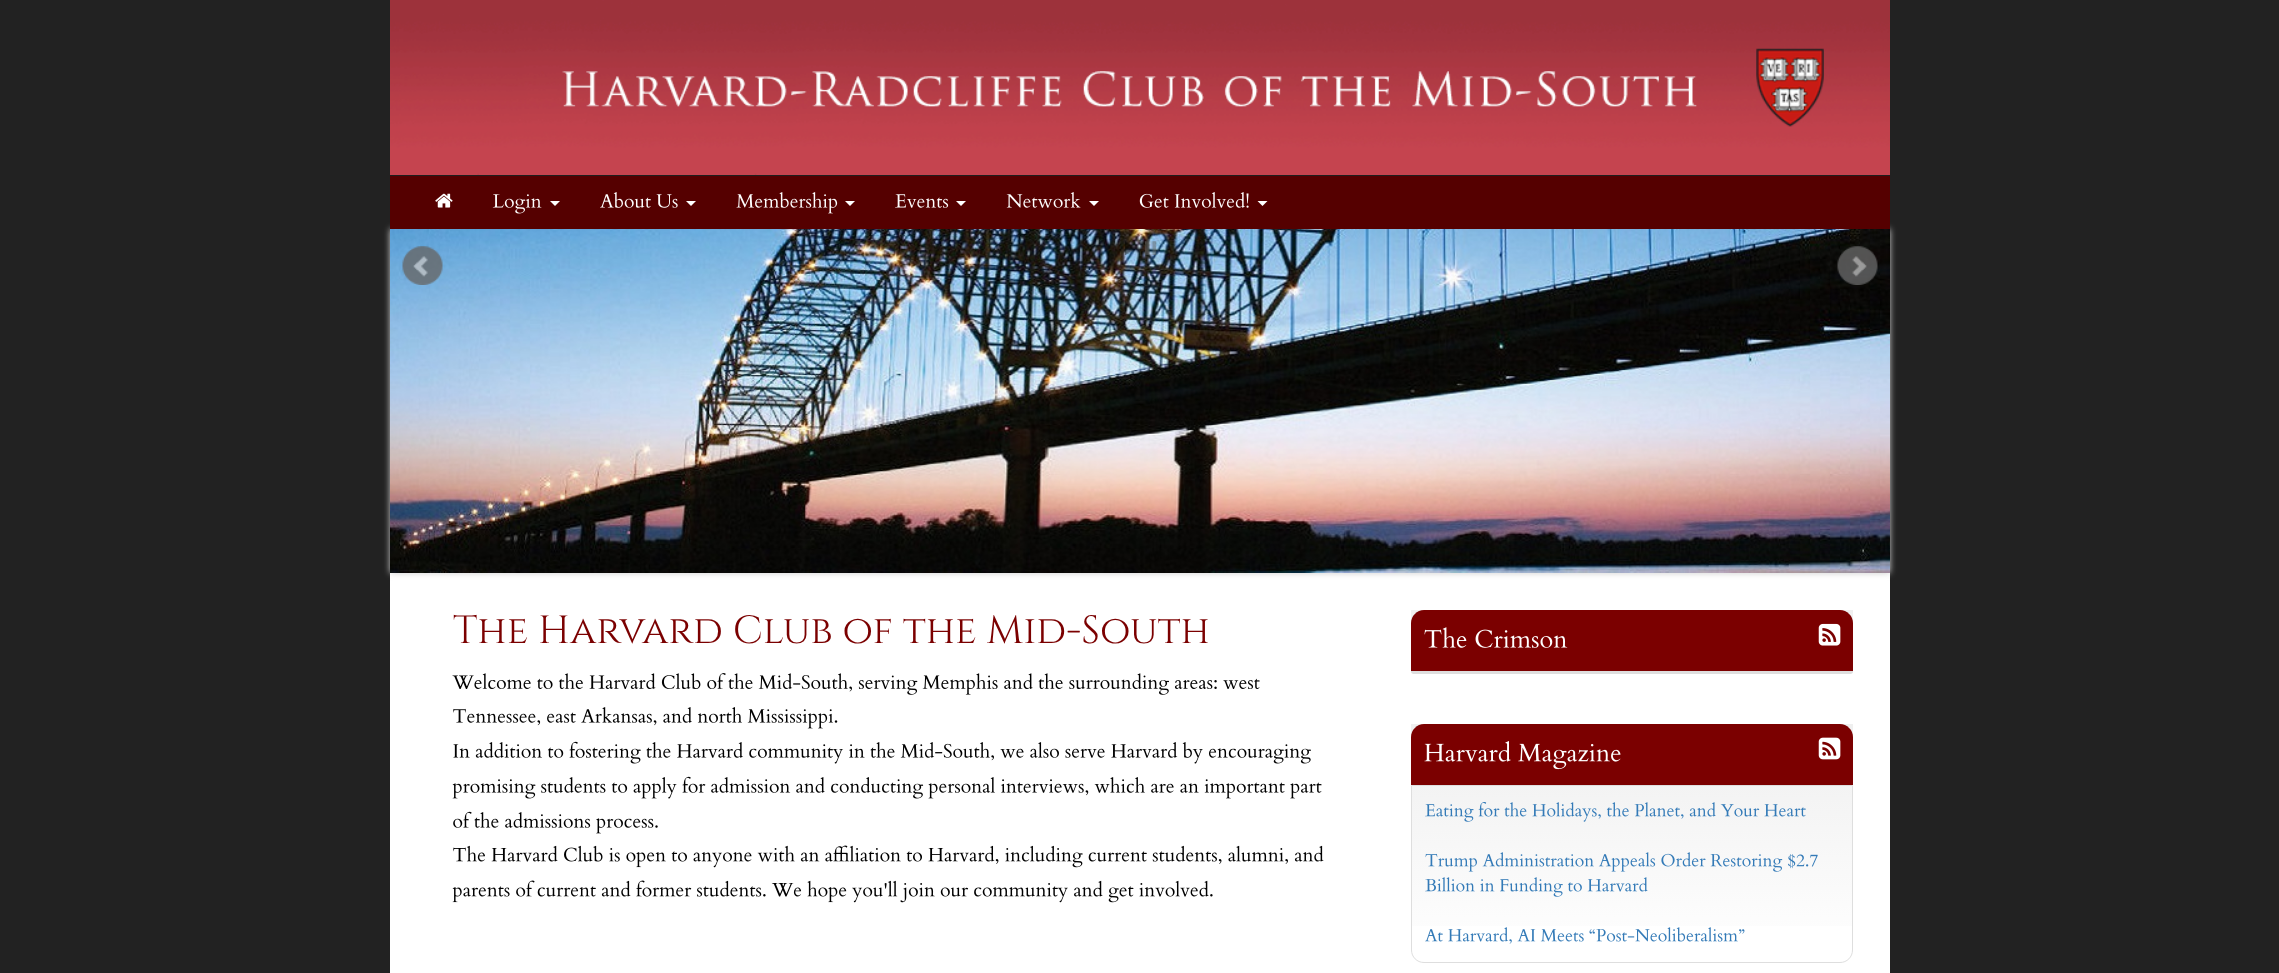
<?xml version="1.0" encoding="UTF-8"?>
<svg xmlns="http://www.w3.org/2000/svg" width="2279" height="973">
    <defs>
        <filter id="blur1" x="-50%" y="-200%" width="200%" height="500%"><feGaussianBlur stdDeviation="3"/></filter>
        <linearGradient id="g1" gradientUnits="userSpaceOnUse" x1="1632" y1="610" x2="1632" y2="674"><stop offset="0" stop-color="#EFEFEF"/><stop offset="1" stop-color="#FFFFFF"/><stop offset="1" stop-color="#7DB9E8"/></linearGradient>
        <linearGradient id="g2" gradientUnits="userSpaceOnUse" x1="1632" y1="724" x2="1632" y2="963"><stop offset="0" stop-color="#EFEFEF"/><stop offset="1" stop-color="#FFFFFF"/><stop offset="1" stop-color="#7DB9E8"/></linearGradient>
    </defs>
    <rect width="100%" height="100%" fill="#222222"/>
    <rect x="390" y="573" width="1500" height="400" fill="#FFFFFF"/>
    <rect x="390" y="175" width="1500" height="1" fill="#1E1E1E"/>
    <image x="390" y="0" width="1500" height="175" href="img_01.png"/>
    <rect x="390" y="229" width="1500" height="344" fill="#CCCCCC" filter="url(#blur1)"/>
    <rect x="390" y="176" width="1500" height="53" fill="#550000"/>
    <image x="435" y="193" width="18" height="15" href="img_02.png"/>
    <image x="492" y="194" width="50" height="20" href="img_03.png"/>
    <path d="M 550 201 H 560 L 555 206 Z" fill="#FFFFFF"/>
    <image x="600" y="192" width="78" height="16" href="img_04.png"/>
    <path d="M 686 201 H 696 L 691 206 Z" fill="#FFFFFF"/>
    <image x="736" y="192" width="102" height="22" href="img_05.png"/>
    <path d="M 845 201 H 855 L 850 206 Z" fill="#FFFFFF"/>
    <image x="895" y="194" width="54" height="14" href="img_06.png"/>
    <path d="M 956 201 H 966 L 961 206 Z" fill="#FFFFFF"/>
    <image x="1006" y="192" width="75" height="16" href="img_07.png"/>
    <path d="M 1089 201 H 1099 L 1094 206 Z" fill="#FFFFFF"/>
    <image x="1139" y="192" width="110" height="16" href="img_08.png"/>
    <path d="M 1257.5 201 H 1267.5 L 1262.5 206 Z" fill="#FFFFFF"/>
    <image x="390" y="229" width="1500" height="344" href="img_09.png"/>
    <image x="1125" y="241" width="12" height="14" href="img_10.png"/>
    <image x="1145" y="241" width="12" height="14" href="img_11.png"/>
    <image x="402" y="246" width="41" height="39" href="img_12.png"/>
    <image x="1837" y="246" width="41" height="39" href="img_13.png"/>
    <text x="453" y="643" font-family="Cinzel" font-size="39.4" fill="#7B0000">The Harvard Club of the Mid-South</text>
    <image x="452" y="673" width="808" height="22" href="img_14.png"/>
    <image x="453" y="707" width="385" height="22" href="img_15.png"/>
    <image x="453" y="741" width="858" height="23" href="img_16.png"/>
    <image x="452" y="776" width="870" height="23" href="img_17.png"/>
    <image x="453" y="811" width="205" height="23" href="img_18.png"/>
    <image x="453" y="845" width="871" height="23" href="img_19.png"/>
    <image x="452" y="880" width="761" height="23" href="img_20.png"/>
    <rect x="1411" y="610" width="442" height="54" fill="url(#g1)"/>
    <path d="M 1424 610 H 1840 C 1847 610 1853 616 1853 623 V 671 H 1411 V 623 C 1411 616 1417 610 1424 610 Z" fill="#7B0000"/>
    <image x="1424" y="627" width="144" height="21" href="img_21.png"/>
    <image x="1818" y="623" width="23" height="23" href="img_22.png"/>
    <path d="M 1411 671 H 1853 V 671.5 C 1853 673 1852 674 1850.5 674 H 1413.5 C 1412 674 1411 673 1411 671.5 Z" fill="#DEDEDE"/>
    <rect x="1411" y="724" width="442" height="202" fill="url(#g2)"/>
    <path d="M 1424 724 H 1840 C 1847 724 1853 730 1853 737 V 785 H 1411 V 737 C 1411 730 1417 724 1424 724 Z" fill="#7B0000"/>
    <image x="1424" y="741" width="197" height="29" href="img_23.png"/>
    <image x="1818" y="737" width="23" height="23" href="img_24.png"/>
    <path d="M 1411.5 785.5 H 1852.5 V 950 C 1852.5 957 1847 962.5 1840 962.5 H 1424 C 1417 962.5 1411.5 957 1411.5 950 Z" fill="none" stroke="#DEDEDE"/>
    <image x="1425" y="802" width="381" height="20" href="img_25.png"/>
    <image x="1425" y="852" width="393" height="20" href="img_26.png"/>
    <image x="1425" y="877" width="223" height="20" href="img_27.png"/>
    <image x="1425" y="927" width="320" height="17" href="img_28.png"/>
</svg>
